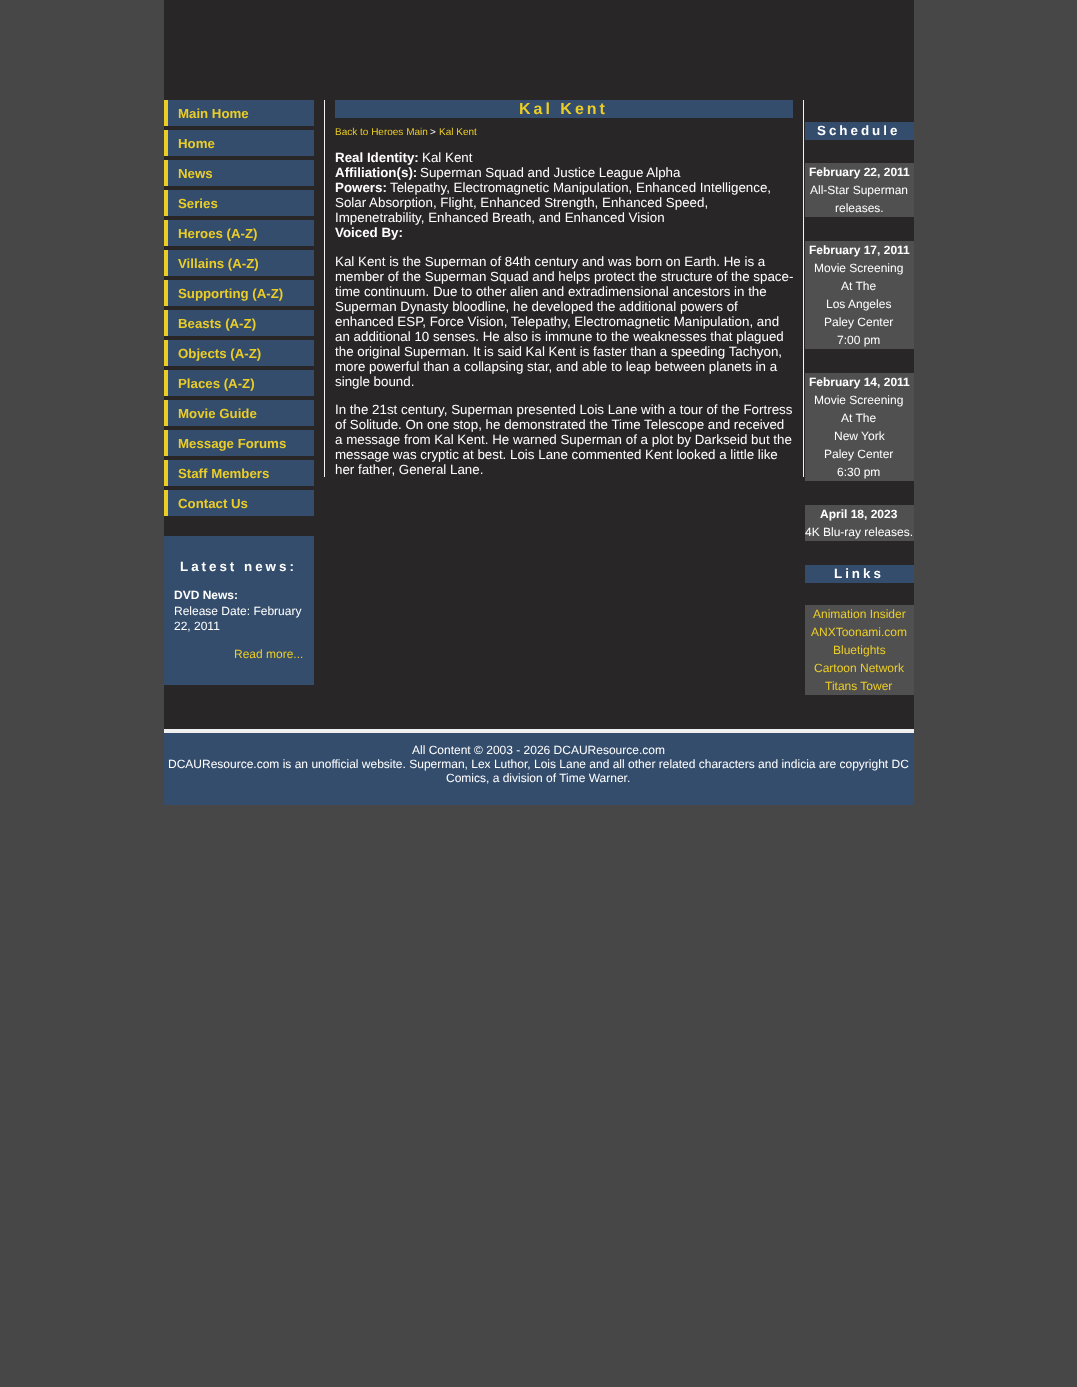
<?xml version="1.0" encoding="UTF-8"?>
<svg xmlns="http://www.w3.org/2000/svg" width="1077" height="1387">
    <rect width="100%" height="100%" fill="#474747"/>
    <rect x="164" y="0" width="750" height="729" fill="#282627"/>
    <rect x="168" y="100" width="146" height="26" fill="#344D6C"/>
    <rect x="164" y="100" width="4" height="26" fill="#EBCD27"/>
    <text x="178" y="118" font-family="Liberation Sans" font-size="13.25" font-weight="700" fill="#EBCD27">Main Home</text>
    <rect x="168" y="130" width="146" height="26" fill="#344D6C"/>
    <rect x="164" y="130" width="4" height="26" fill="#EBCD27"/>
    <text x="178" y="148" font-family="Liberation Sans" font-size="13.25" font-weight="700" fill="#EBCD27">Home</text>
    <rect x="168" y="160" width="146" height="26" fill="#344D6C"/>
    <rect x="164" y="160" width="4" height="26" fill="#EBCD27"/>
    <text x="178" y="178" font-family="Liberation Sans" font-size="13.25" font-weight="700" fill="#EBCD27">News</text>
    <rect x="168" y="190" width="146" height="26" fill="#344D6C"/>
    <rect x="164" y="190" width="4" height="26" fill="#EBCD27"/>
    <text x="178" y="208" font-family="Liberation Sans" font-size="13.25" font-weight="700" fill="#EBCD27">Series</text>
    <rect x="168" y="220" width="146" height="26" fill="#344D6C"/>
    <rect x="164" y="220" width="4" height="26" fill="#EBCD27"/>
    <text x="178" y="238" font-family="Liberation Sans" font-size="13.25" font-weight="700" fill="#EBCD27">Heroes (A-Z)</text>
    <rect x="168" y="250" width="146" height="26" fill="#344D6C"/>
    <rect x="164" y="250" width="4" height="26" fill="#EBCD27"/>
    <text x="178" y="268" font-family="Liberation Sans" font-size="13.25" font-weight="700" fill="#EBCD27">Villains (A-Z)</text>
    <rect x="168" y="280" width="146" height="26" fill="#344D6C"/>
    <rect x="164" y="280" width="4" height="26" fill="#EBCD27"/>
    <text x="178" y="298" font-family="Liberation Sans" font-size="13.25" font-weight="700" fill="#EBCD27">Supporting (A-Z)</text>
    <rect x="168" y="310" width="146" height="26" fill="#344D6C"/>
    <rect x="164" y="310" width="4" height="26" fill="#EBCD27"/>
    <text x="178" y="328" font-family="Liberation Sans" font-size="13.25" font-weight="700" fill="#EBCD27">Beasts (A-Z)</text>
    <rect x="168" y="340" width="146" height="26" fill="#344D6C"/>
    <rect x="164" y="340" width="4" height="26" fill="#EBCD27"/>
    <text x="178" y="358" font-family="Liberation Sans" font-size="13.25" font-weight="700" fill="#EBCD27">Objects (A-Z)</text>
    <rect x="168" y="370" width="146" height="26" fill="#344D6C"/>
    <rect x="164" y="370" width="4" height="26" fill="#EBCD27"/>
    <text x="178" y="388" font-family="Liberation Sans" font-size="13.25" font-weight="700" fill="#EBCD27">Places (A-Z)</text>
    <rect x="168" y="400" width="146" height="26" fill="#344D6C"/>
    <rect x="164" y="400" width="4" height="26" fill="#EBCD27"/>
    <text x="178" y="418" font-family="Liberation Sans" font-size="13.25" font-weight="700" fill="#EBCD27">Movie Guide</text>
    <rect x="168" y="430" width="146" height="26" fill="#344D6C"/>
    <rect x="164" y="430" width="4" height="26" fill="#EBCD27"/>
    <text x="178" y="448" font-family="Liberation Sans" font-size="13.25" font-weight="700" fill="#EBCD27">Message Forums</text>
    <rect x="168" y="460" width="146" height="26" fill="#344D6C"/>
    <rect x="164" y="460" width="4" height="26" fill="#EBCD27"/>
    <text x="178" y="478" font-family="Liberation Sans" font-size="13.25" font-weight="700" fill="#EBCD27">Staff Members</text>
    <rect x="168" y="490" width="146" height="26" fill="#344D6C"/>
    <rect x="164" y="490" width="4" height="26" fill="#EBCD27"/>
    <text x="178" y="508" font-family="Liberation Sans" font-size="13.25" font-weight="700" fill="#EBCD27">Contact Us</text>
    <rect x="164" y="536" width="150" height="149" fill="#344D6C"/>
    <text x="180" y="571" font-family="Liberation Sans" font-size="13.35" font-weight="700" letter-spacing="3" fill="#FFFFFF">Latest news:</text>
    <text x="174" y="599" font-family="Liberation Sans" font-size="12" font-weight="700" fill="#FFFFFF">DVD News:</text>
    <text font-family="Liberation Sans" font-size="12" fill="#FFFFFF">
        <tspan x="174" y="615">Release Date: February</tspan>
        <tspan x="174" y="630">22, 2011</tspan>
    </text>
    <text x="234" y="658" font-family="Liberation Sans" font-size="12" fill="#EBCD27">Read more...</text>
    <rect x="803" y="100" width="1" height="377" fill="#F0F0F0"/>
    <rect x="324" y="100" width="1" height="377" fill="#F0F0F0"/>
    <rect x="335" y="100" width="458" height="18" fill="#344D6C"/>
    <text x="519" y="114" font-family="Liberation Sans" font-size="16" font-weight="700" letter-spacing="3" fill="#EBCD27">Kal Kent</text>
    <text x="335" y="135" font-family="Liberation Sans" font-size="10" fill="#EBCD27">Back to Heroes Main</text>
    <text x="430" y="135" font-family="Liberation Sans" font-size="10" fill="#FFFFFF">&gt;</text>
    <text x="439" y="135" font-family="Liberation Sans" font-size="10" fill="#EBCD27">Kal Kent</text>
    <text x="335" y="162" font-family="Liberation Sans" font-size="13.35" font-weight="700" fill="#FFFFFF">Real Identity:</text>
    <text x="422" y="162" font-family="Liberation Sans" font-size="13.35" fill="#FFFFFF">Kal Kent</text>
    <text x="335" y="177" font-family="Liberation Sans" font-size="13.35" font-weight="700" fill="#FFFFFF">Affiliation(s):</text>
    <text x="420" y="177" font-family="Liberation Sans" font-size="13.35" fill="#FFFFFF">Superman Squad and Justice League Alpha</text>
    <text x="335" y="192" font-family="Liberation Sans" font-size="13.35" font-weight="700" fill="#FFFFFF">Powers:</text>
    <text x="390" y="192" font-family="Liberation Sans" font-size="13.35" fill="#FFFFFF">Telepathy, Electromagnetic Manipulation, Enhanced Intelligence,</text>
    <text font-family="Liberation Sans" font-size="13.35" fill="#FFFFFF">
        <tspan x="335" y="207">Solar Absorption, Flight, Enhanced Strength, Enhanced Speed,</tspan>
        <tspan x="335" y="222">Impenetrability, Enhanced Breath, and Enhanced Vision</tspan>
    </text>
    <text x="335" y="237" font-family="Liberation Sans" font-size="13.35" font-weight="700" fill="#FFFFFF">Voiced By:</text>
    <text font-family="Liberation Sans" font-size="13.35" fill="#FFFFFF">
        <tspan x="335" y="266">Kal Kent is the Superman of 84th century and was born on Earth. He is a</tspan>
        <tspan x="335" y="281">member of the Superman Squad and helps protect the structure of the space-</tspan>
        <tspan x="335" y="296">time continuum. Due to other alien and extradimensional ancestors in the</tspan>
        <tspan x="335" y="311">Superman Dynasty bloodline, he developed the additional powers of</tspan>
        <tspan x="335" y="326">enhanced ESP, Force Vision, Telepathy, Electromagnetic Manipulation, and</tspan>
        <tspan x="335" y="341">an additional 10 senses. He also is immune to the weaknesses that plagued</tspan>
        <tspan x="335" y="356">the original Superman. It is said Kal Kent is faster than a speeding Tachyon,</tspan>
        <tspan x="335" y="371">more powerful than a collapsing star, and able to leap between planets in a</tspan>
        <tspan x="335" y="386">single bound.</tspan>
    </text>
    <text font-family="Liberation Sans" font-size="13.35" fill="#FFFFFF">
        <tspan x="335" y="414">In the 21st century, Superman presented Lois Lane with a tour of the Fortress</tspan>
        <tspan x="335" y="429">of Solitude. On one stop, he demonstrated the Time Telescope and received</tspan>
        <tspan x="335" y="444">a message from Kal Kent. He warned Superman of a plot by Darkseid but the</tspan>
        <tspan x="335" y="459">message was cryptic at best. Lois Lane commented Kent looked a little like</tspan>
        <tspan x="335" y="474">her father, General Lane.</tspan>
    </text>
    <rect x="805" y="122" width="109" height="18" fill="#344D6C"/>
    <text x="817" y="135" font-family="Liberation Sans" font-size="13.35" font-weight="700" letter-spacing="3" fill="#FFFFFF">Schedule</text>
    <rect x="805" y="163" width="109" height="54" fill="#505050"/>
    <text x="809" y="176" font-family="Liberation Sans" font-size="12" font-weight="700" fill="#FFFFFF">February 22, 2011</text>
    <text x="810" y="194" font-family="Liberation Sans" font-size="12" fill="#FFFFFF">All-Star Superman</text>
    <text x="835" y="212" font-family="Liberation Sans" font-size="12" fill="#FFFFFF">releases.</text>
    <rect x="805" y="241" width="109" height="108" fill="#505050"/>
    <text x="809" y="254" font-family="Liberation Sans" font-size="12" font-weight="700" fill="#FFFFFF">February 17, 2011</text>
    <text x="814" y="272" font-family="Liberation Sans" font-size="12" fill="#FFFFFF">Movie Screening</text>
    <text x="841" y="290" font-family="Liberation Sans" font-size="12" fill="#FFFFFF">At The</text>
    <text x="826" y="308" font-family="Liberation Sans" font-size="12" fill="#FFFFFF">Los Angeles</text>
    <text x="824" y="326" font-family="Liberation Sans" font-size="12" fill="#FFFFFF">Paley Center</text>
    <text x="837" y="344" font-family="Liberation Sans" font-size="12" fill="#FFFFFF">7:00 pm</text>
    <rect x="805" y="373" width="109" height="108" fill="#505050"/>
    <text x="809" y="386" font-family="Liberation Sans" font-size="12" font-weight="700" fill="#FFFFFF">February 14, 2011</text>
    <text x="814" y="404" font-family="Liberation Sans" font-size="12" fill="#FFFFFF">Movie Screening</text>
    <text x="841" y="422" font-family="Liberation Sans" font-size="12" fill="#FFFFFF">At The</text>
    <text x="834" y="440" font-family="Liberation Sans" font-size="12" fill="#FFFFFF">New York</text>
    <text x="824" y="458" font-family="Liberation Sans" font-size="12" fill="#FFFFFF">Paley Center</text>
    <text x="837" y="476" font-family="Liberation Sans" font-size="12" fill="#FFFFFF">6:30 pm</text>
    <rect x="805" y="505" width="109" height="36" fill="#505050"/>
    <text x="820" y="518" font-family="Liberation Sans" font-size="12" font-weight="700" fill="#FFFFFF">April 18, 2023</text>
    <text x="805" y="536" font-family="Liberation Sans" font-size="12" fill="#FFFFFF">4K Blu-ray releases.</text>
    <rect x="805" y="565" width="109" height="18" fill="#344D6C"/>
    <text x="834" y="578" font-family="Liberation Sans" font-size="13.35" font-weight="700" letter-spacing="3" fill="#FFFFFF">Links</text>
    <rect x="805" y="605" width="109" height="90" fill="#505050"/>
    <text x="813" y="618" font-family="Liberation Sans" font-size="12" fill="#EBCD27">Animation Insider</text>
    <text x="811" y="636" font-family="Liberation Sans" font-size="12" fill="#EBCD27">ANXToonami.com</text>
    <text x="833" y="654" font-family="Liberation Sans" font-size="12" fill="#EBCD27">Bluetights</text>
    <text x="814" y="672" font-family="Liberation Sans" font-size="12" fill="#EBCD27">Cartoon Network</text>
    <text x="825" y="690" font-family="Liberation Sans" font-size="12" fill="#EBCD27">Titans Tower</text>
    <rect x="164" y="733" width="750" height="72" fill="#344D6C"/>
    <rect x="164" y="729" width="750" height="4" fill="#F0F0F0"/>
    <text x="412" y="754" font-family="Liberation Sans" font-size="12" fill="#FFFFFF">All Content © 2003 - 2026 DCAUResource.com</text>
    <text x="168" y="768" font-family="Liberation Sans" font-size="12" fill="#FFFFFF">DCAUResource.com is an unofficial website. Superman, Lex Luthor, Lois Lane and all other related characters and indicia are copyright DC</text>
    <text x="446" y="782" font-family="Liberation Sans" font-size="12" fill="#FFFFFF">Comics, a division of Time Warner.</text>
</svg>
